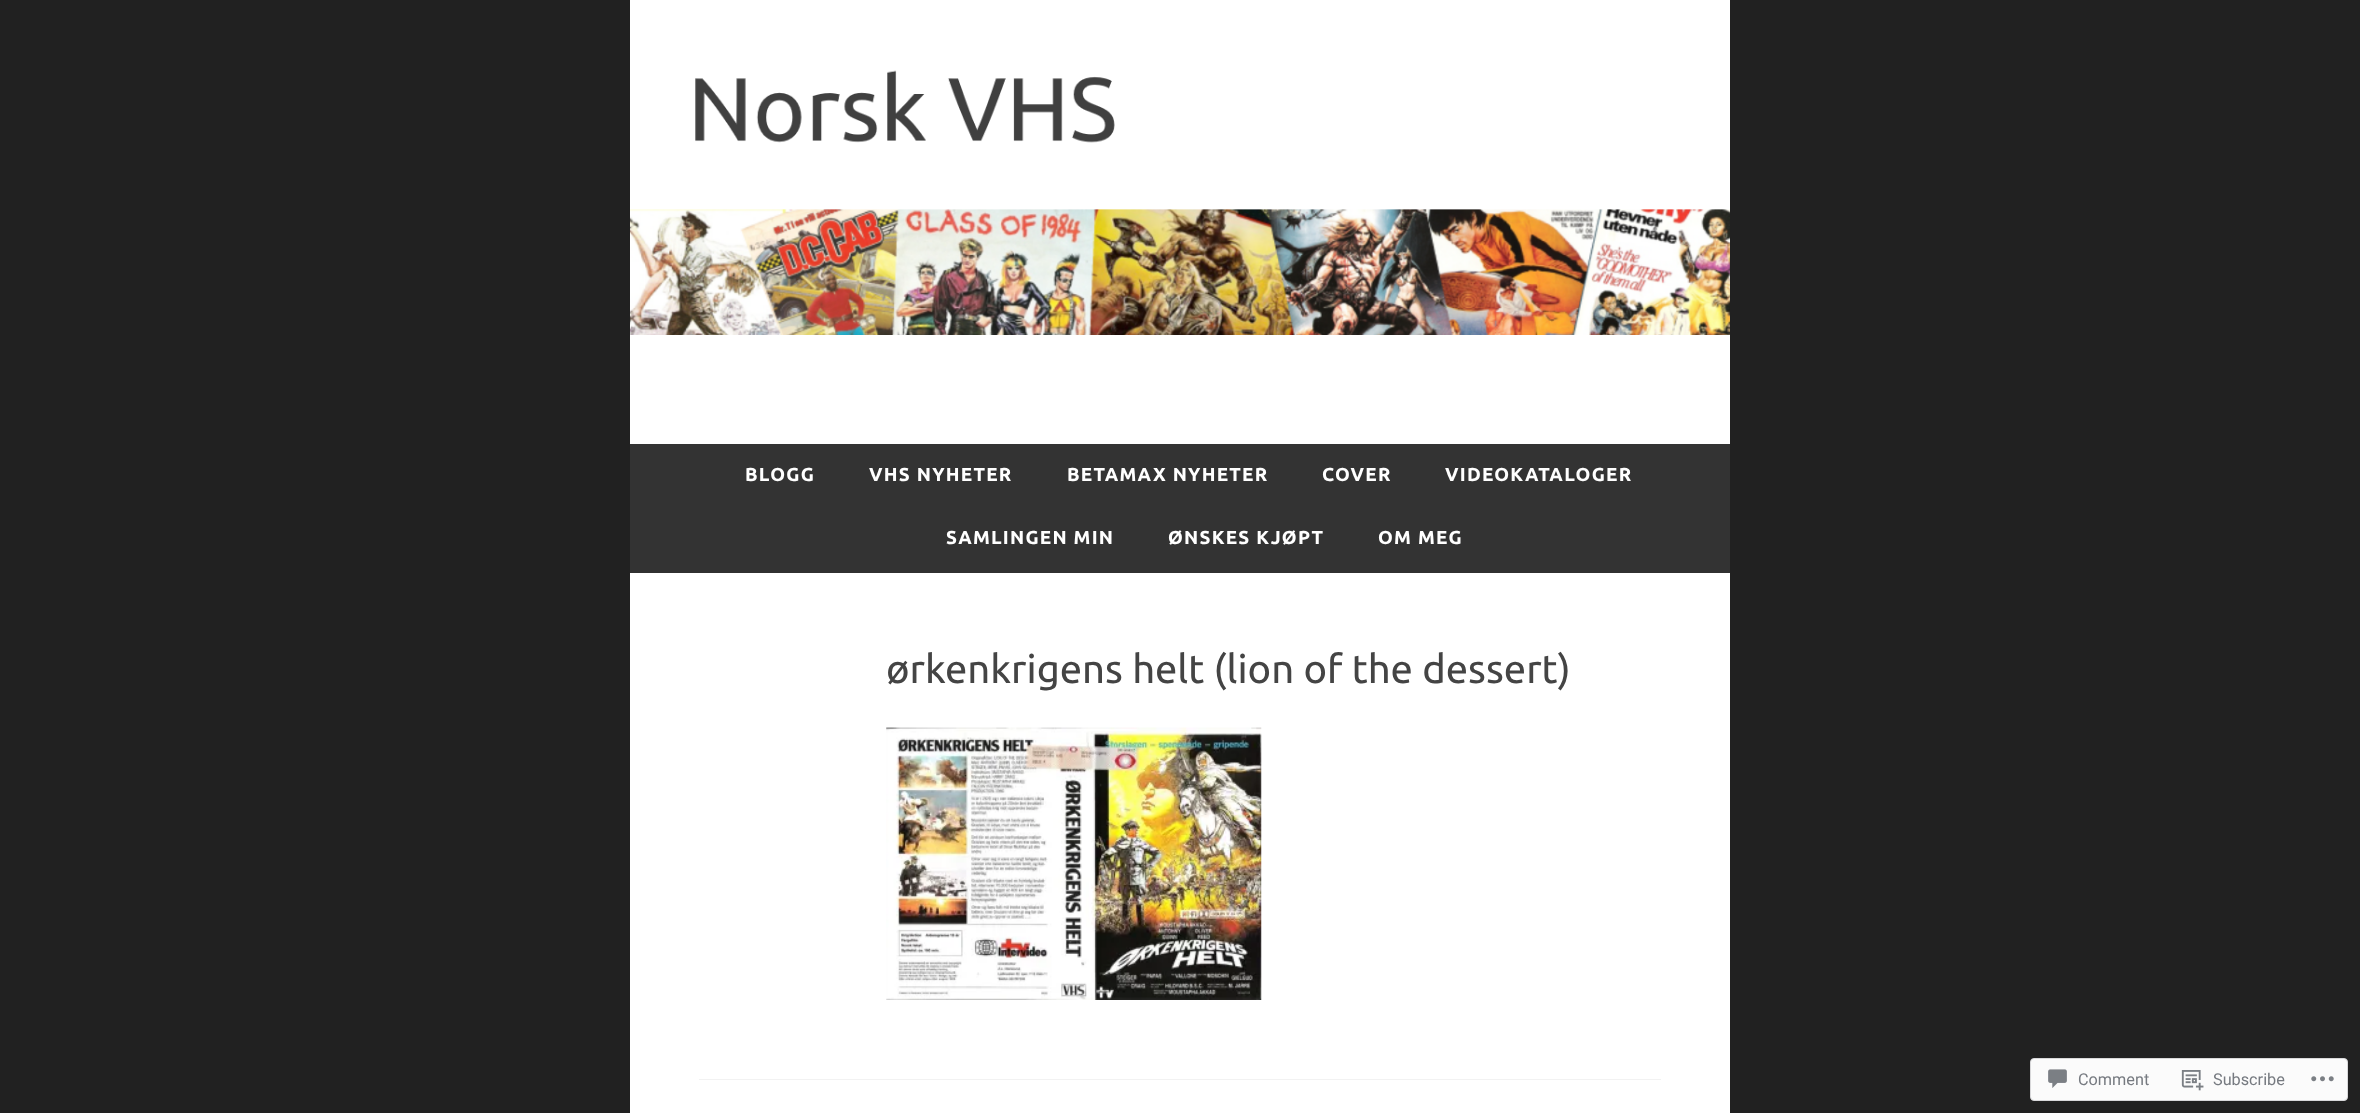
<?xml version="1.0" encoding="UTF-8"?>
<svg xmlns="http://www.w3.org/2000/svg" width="2360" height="1113">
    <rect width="100%" height="100%" fill="#212121"/>
    <image x="630" y="0" width="1100" height="335" href="img_01.png"/>
    <rect x="630" y="335" width="1100" height="109" fill="#FFFFFF"/>
    <rect x="630" y="444" width="1100" height="126" fill="#333333"/>
    <rect x="630" y="570" width="1100" height="3" fill="#313131"/>
    <text x="745" y="481" font-family="Ubuntu" font-size="18.75" font-weight="700" letter-spacing="1.25" fill="#FFFFFF">BLOGG</text>
    <text x="869" y="481" font-family="Ubuntu" font-size="18.75" font-weight="700" letter-spacing="1.25" fill="#FFFFFF">VHS NYHETER</text>
    <text x="1067" y="481" font-family="Ubuntu" font-size="18.75" font-weight="700" letter-spacing="1.25" fill="#FFFFFF">BETAMAX NYHETER</text>
    <text x="1322" y="481" font-family="Ubuntu" font-size="18.75" font-weight="700" letter-spacing="1.25" fill="#FFFFFF">COVER</text>
    <text x="1445" y="481" font-family="Ubuntu" font-size="18.75" font-weight="700" letter-spacing="1.25" fill="#FFFFFF">VIDEOKATALOGER</text>
    <text x="946" y="544" font-family="Ubuntu" font-size="18.75" font-weight="700" letter-spacing="1.25" fill="#FFFFFF">SAMLINGEN MIN</text>
    <text x="1168" y="544" font-family="Ubuntu" font-size="18.75" font-weight="700" letter-spacing="1.25" fill="#FFFFFF">ØNSKES KJØPT</text>
    <text x="1378" y="544" font-family="Ubuntu" font-size="18.75" font-weight="700" letter-spacing="1.25" fill="#FFFFFF">OM MEG</text>
    <rect x="630" y="573" width="1100" height="540" fill="#FFFFFF"/>
    <text x="886" y="683" font-family="Ubuntu" font-size="40" fill="#444444">ørkenkrigens helt (lion of the dessert)</text>
    <image x="886" y="727" width="376" height="273" href="img_02.png"/>
    <rect x="699" y="1079" width="962" height="1" fill="#F2F2F2"/>
    <rect x="2030.5" y="1058.5" width="317" height="42" rx="3.5" fill="#FBFBFB" stroke="#D8D8DA"/>
    <image x="2048" y="1069" width="19" height="19" href="img_03.png"/>
    <text x="2078" y="1085" font-family="Roboto" font-size="16.25" fill="#767A80">Comment</text>
    <image x="2181" y="1070" width="23" height="21" href="img_04.png"/>
    <text x="2213" y="1085" font-family="Roboto" font-size="16.25" fill="#767A80">Subscribe</text>
    <image x="2311" y="1076" width="23" height="6" href="img_05.png"/>
</svg>
